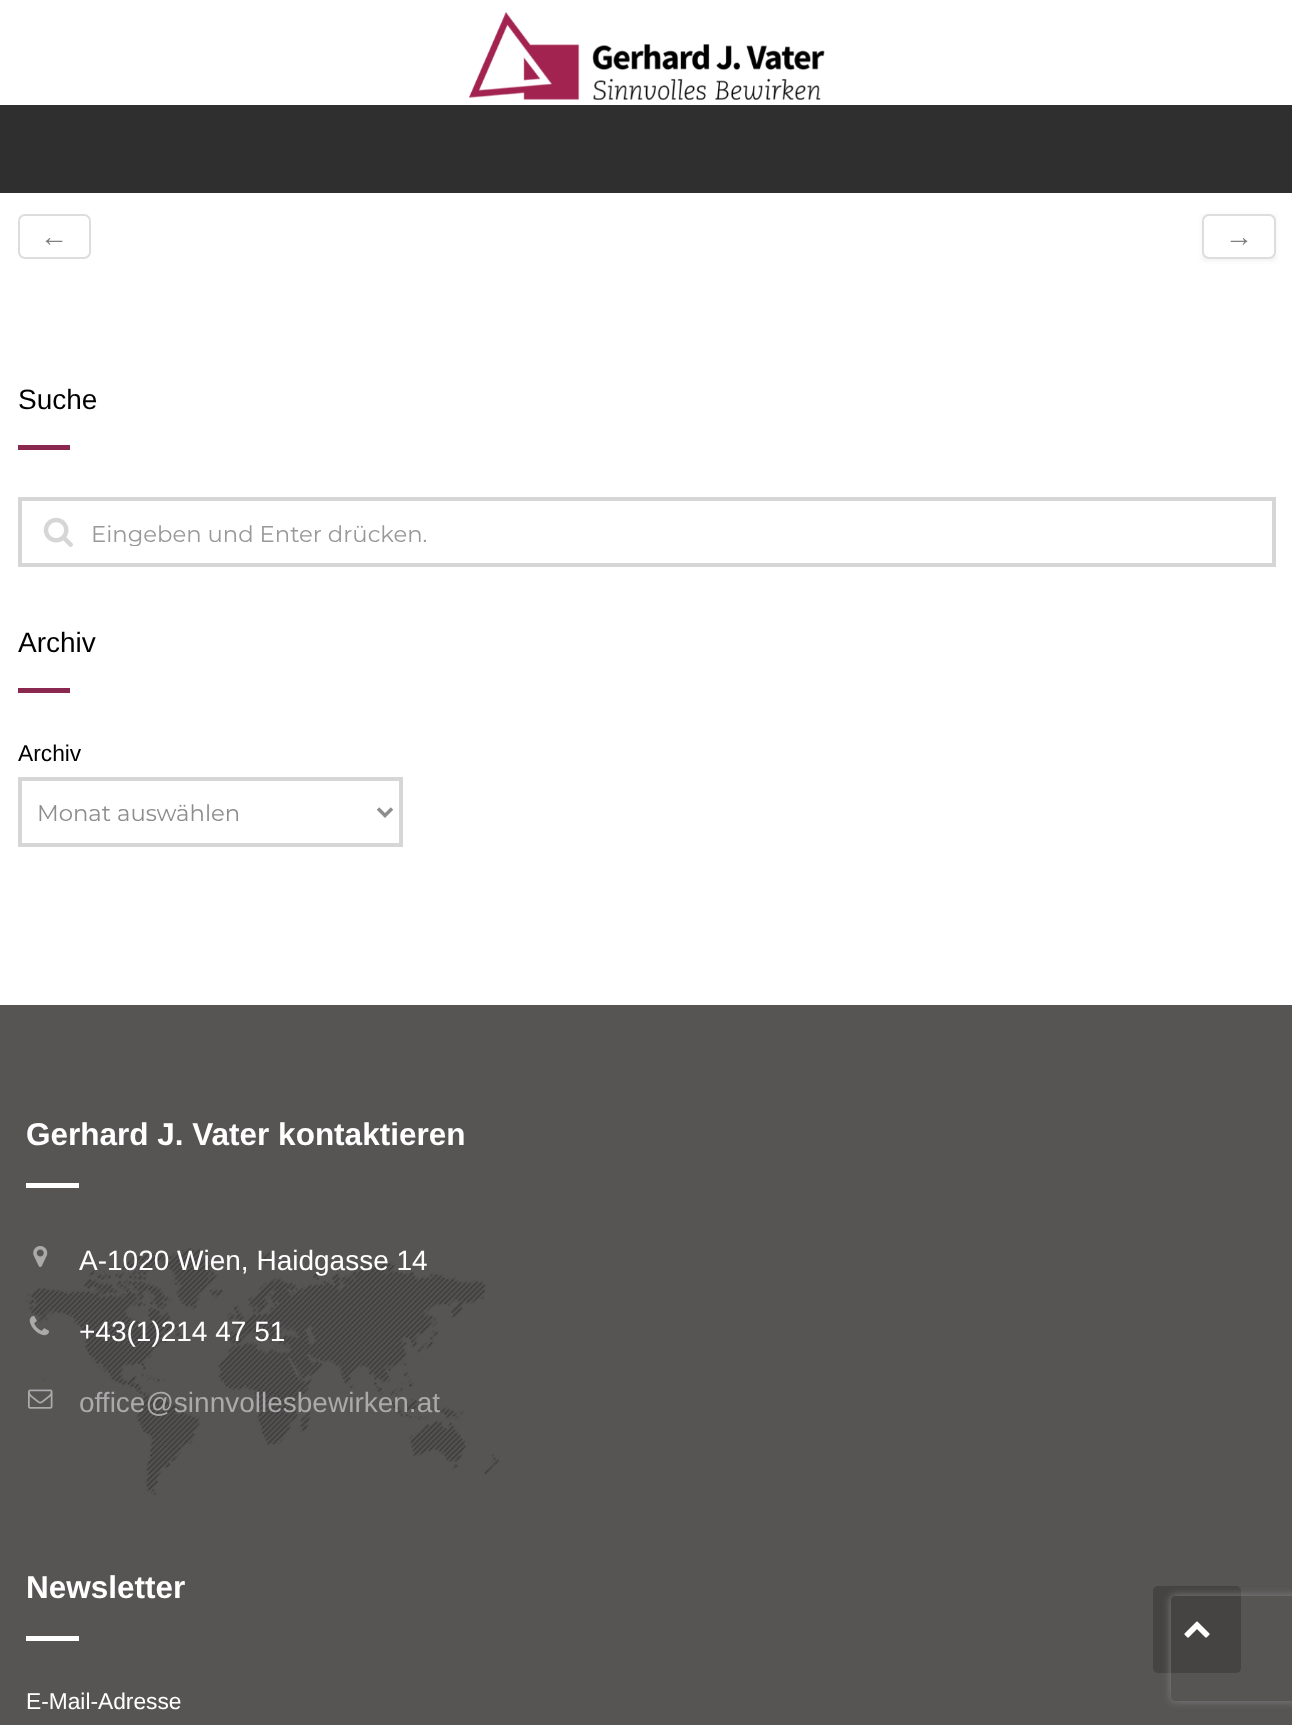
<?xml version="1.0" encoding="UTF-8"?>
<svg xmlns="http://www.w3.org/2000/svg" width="1292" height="1725">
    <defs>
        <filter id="blur1" x="-50%" y="-200%" width="200%" height="500%"><feGaussianBlur stdDeviation="2"/></filter>
        <clipPath id="clip1"><rect x="91" y="518" width="1167" height="28"/></clipPath>
        <clipPath id="clip2"><path d="M 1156 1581 H 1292 V 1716 H 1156 Z M 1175 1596 H 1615 C 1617 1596 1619 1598 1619 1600 V 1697 C 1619 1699 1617 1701 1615 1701 H 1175 C 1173 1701 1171 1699 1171 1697 V 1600 C 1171 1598 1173 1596 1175 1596 Z" clip-rule="evenodd"/></clipPath>
        <filter id="blur2" x="-50%" y="-200%" width="200%" height="500%"><feGaussianBlur stdDeviation="4.5"/></filter>
    </defs>
    <rect width="100%" height="100%" fill="#FFFFFF"/>
    <image x="469" y="12" width="356" height="88" href="img_01.png"/>
    <rect x="0" y="105" width="1292" height="88" fill="#2F2F2F"/>
    <rect x="19" y="215" width="71" height="43" rx="6" fill="none" stroke="#DDDDDD" stroke-width="2"/>
    <text x="40" y="246" font-family="Liberation Sans" font-size="28" fill="#808080">←</text>
    <rect x="1202" y="215" width="74" height="46" fill="#000000" fill-opacity="0.05" filter="url(#blur1)"/>
    <rect x="1203" y="215" width="72" height="43" rx="6" fill="#FFFFFF" stroke="#DDDDDD" stroke-width="2"/>
    <text x="1225" y="246" font-family="Liberation Sans" font-size="28" fill="#808080">→</text>
    <text x="18" y="409" font-family="Liberation Sans" font-size="28" fill="#000000">Suche</text>
    <rect x="18" y="445" width="52" height="5" fill="#8B284F"/>
    <rect x="20" y="499" width="1254" height="66" fill="none" stroke="#D6D6D6" stroke-width="4"/>
    <image x="43" y="517" width="30" height="30" href="img_02.png"/>
    <g clip-path="url(#clip1)">
        <text x="91" y="542" font-family="Montserrat" font-size="22.75" fill="#999999">Eingeben und Enter drücken.</text>
    </g>
    <text x="18" y="652" font-family="Liberation Sans" font-size="28" fill="#000000">Archiv</text>
    <rect x="18" y="688" width="52" height="5" fill="#8B284F"/>
    <text x="18" y="761" font-family="Liberation Sans" font-size="22.75" fill="#000000">Archiv</text>
    <rect x="20" y="779" width="381" height="66" fill="none" stroke="#D6D6D6" stroke-width="4"/>
    <path d="M 378 808.5 L 385 815.5 L 392 808.5" fill="none" stroke="#8D8D8D" stroke-width="3.5"/>
    <text x="37" y="821" font-family="Montserrat" font-size="22.75" fill="#8D8D8D">Monat auswählen</text>
    <rect x="0" y="1005" width="1292" height="720" fill="#575454"/>
    <text x="26" y="1145" font-family="Liberation Sans" font-size="31.5" font-weight="700" fill="#FFFFFF">Gerhard J. Vater kontaktieren</text>
    <rect x="26" y="1183" width="53" height="5" fill="#FFFFFF"/>
    <image x="26" y="1248" width="473" height="247" href="img_03.png"/>
    <image x="33" y="1246" width="15" height="21" href="img_04.png"/>
    <text x="79" y="1270" font-family="Liberation Sans" font-size="28" fill="#FFFFFF">A-1020 Wien, Haidgasse 14</text>
    <image x="29" y="1316" width="20" height="20" href="img_05.png"/>
    <text x="79" y="1341" font-family="Liberation Sans" font-size="28" fill="#FFFFFF">+43(1)214 47 51</text>
    <image x="28" y="1389" width="25" height="20" href="img_06.png"/>
    <text x="79" y="1412" font-family="Liberation Sans" font-size="28" fill="#AAAAAA">office@sinnvollesbewirken.at</text>
    <text x="26" y="1598" font-family="Liberation Sans" font-size="31.5" font-weight="700" fill="#FFFFFF">Newsletter</text>
    <rect x="26" y="1636" width="53" height="5" fill="#FFFFFF"/>
    <text x="26" y="1709" font-family="Liberation Sans" font-size="22.75" fill="#FFFFFF">E-Mail-Adresse</text>
    <rect x="1153" y="1586" width="88" height="87" rx="5" fill="#464343"/>
    <image x="1184" y="1621" width="26" height="17" href="img_07.png"/>
    <g clip-path="url(#clip2)">
        <rect x="1171" y="1596" width="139" height="105" rx="4" fill="#808080" filter="url(#blur2)"/>
    </g>
</svg>
